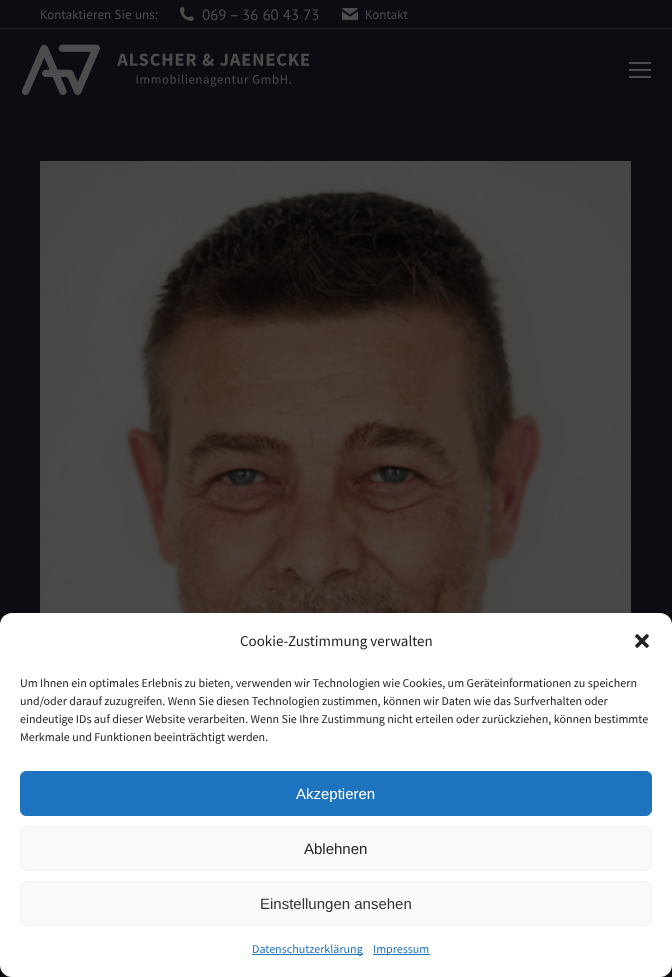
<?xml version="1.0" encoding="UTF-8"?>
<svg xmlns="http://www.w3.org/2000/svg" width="672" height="977">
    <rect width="100%" height="100%" fill="#0D0C12"/>
    <text x="40" y="19" font-family="PT Sans" font-size="13" fill="#4D4D4D">Kontaktieren Sie uns:</text>
    <image x="180" y="7" width="14" height="14" href="img_01.png"/>
    <text x="202" y="20" font-family="PT Sans" font-size="15" fill="#4D4D4D">069 – 36 60 43 73</text>
    <image x="342" y="8" width="16" height="12" href="img_02.png"/>
    <text x="365" y="19" font-family="PT Sans" font-size="13" fill="#4D4D4D">Kontakt</text>
    <rect x="0" y="28" width="672" height="1" fill="#222222"/>
    <image x="21" y="44" width="289" height="52" href="img_03.png"/>
    <rect x="629" y="62" width="22" height="2" fill="#4D4D4D"/>
    <rect x="629" y="69" width="22" height="2" fill="#4D4D4D"/>
    <rect x="629" y="76" width="22" height="2" fill="#4D4D4D"/>
    <image x="40" y="161" width="591" height="452" href="img_04.png"/>
    <rect x="0" y="613" width="672" height="364" rx="12" fill="#FFFFFF"/>
    <text x="240" y="646" font-family="Source Sans Pro" font-size="15" fill="#222222">Cookie-Zustimmung verwalten</text>
    <image x="635" y="634" width="14" height="14" href="img_05.png"/>
    <text font-family="Source Sans Pro" font-size="12" fill="#222222">
        <tspan x="20" y="687">Um Ihnen ein optimales Erlebnis zu bieten, verwenden wir Technologien wie Cookies, um Geräteinformationen zu speichern</tspan>
        <tspan x="20" y="705">und/oder darauf zuzugreifen. Wenn Sie diesen Technologien zustimmen, können wir Daten wie das Surfverhalten oder</tspan>
        <tspan x="20" y="723">eindeutige IDs auf dieser Website verarbeiten. Wenn Sie Ihre Zustimmung nicht erteilen oder zurückziehen, können bestimmte</tspan>
        <tspan x="20" y="741">Merkmale und Funktionen beeinträchtigt werden.</tspan>
    </text>
    <rect x="20.5" y="771.5" width="631" height="44" rx="5.5" fill="#1E73BE" stroke="#1E73BE"/>
    <text x="296" y="799" font-family="Liberation Sans" font-size="15" fill="#FFFFFF">Akzeptieren</text>
    <rect x="20.5" y="826.5" width="631" height="44" rx="5.5" fill="#F9F9F9" stroke="#F2F2F2"/>
    <text x="304" y="854" font-family="Liberation Sans" font-size="15" fill="#222222">Ablehnen</text>
    <rect x="20.5" y="881.5" width="631" height="44" rx="5.5" fill="#F9F9F9" stroke="#F2F2F2"/>
    <text x="260" y="909" font-family="Liberation Sans" font-size="15" fill="#333333">Einstellungen ansehen</text>
    <rect x="252" y="954" width="111" height="1" fill="#1E73BE"/>
    <text x="252" y="953" font-family="Source Sans Pro" font-size="12" fill="#1E73BE">Datenschutzerklärung</text>
    <rect x="373" y="954" width="57" height="1" fill="#1E73BE"/>
    <text x="373" y="953" font-family="Source Sans Pro" font-size="12" fill="#1E73BE">Impressum</text>
</svg>
